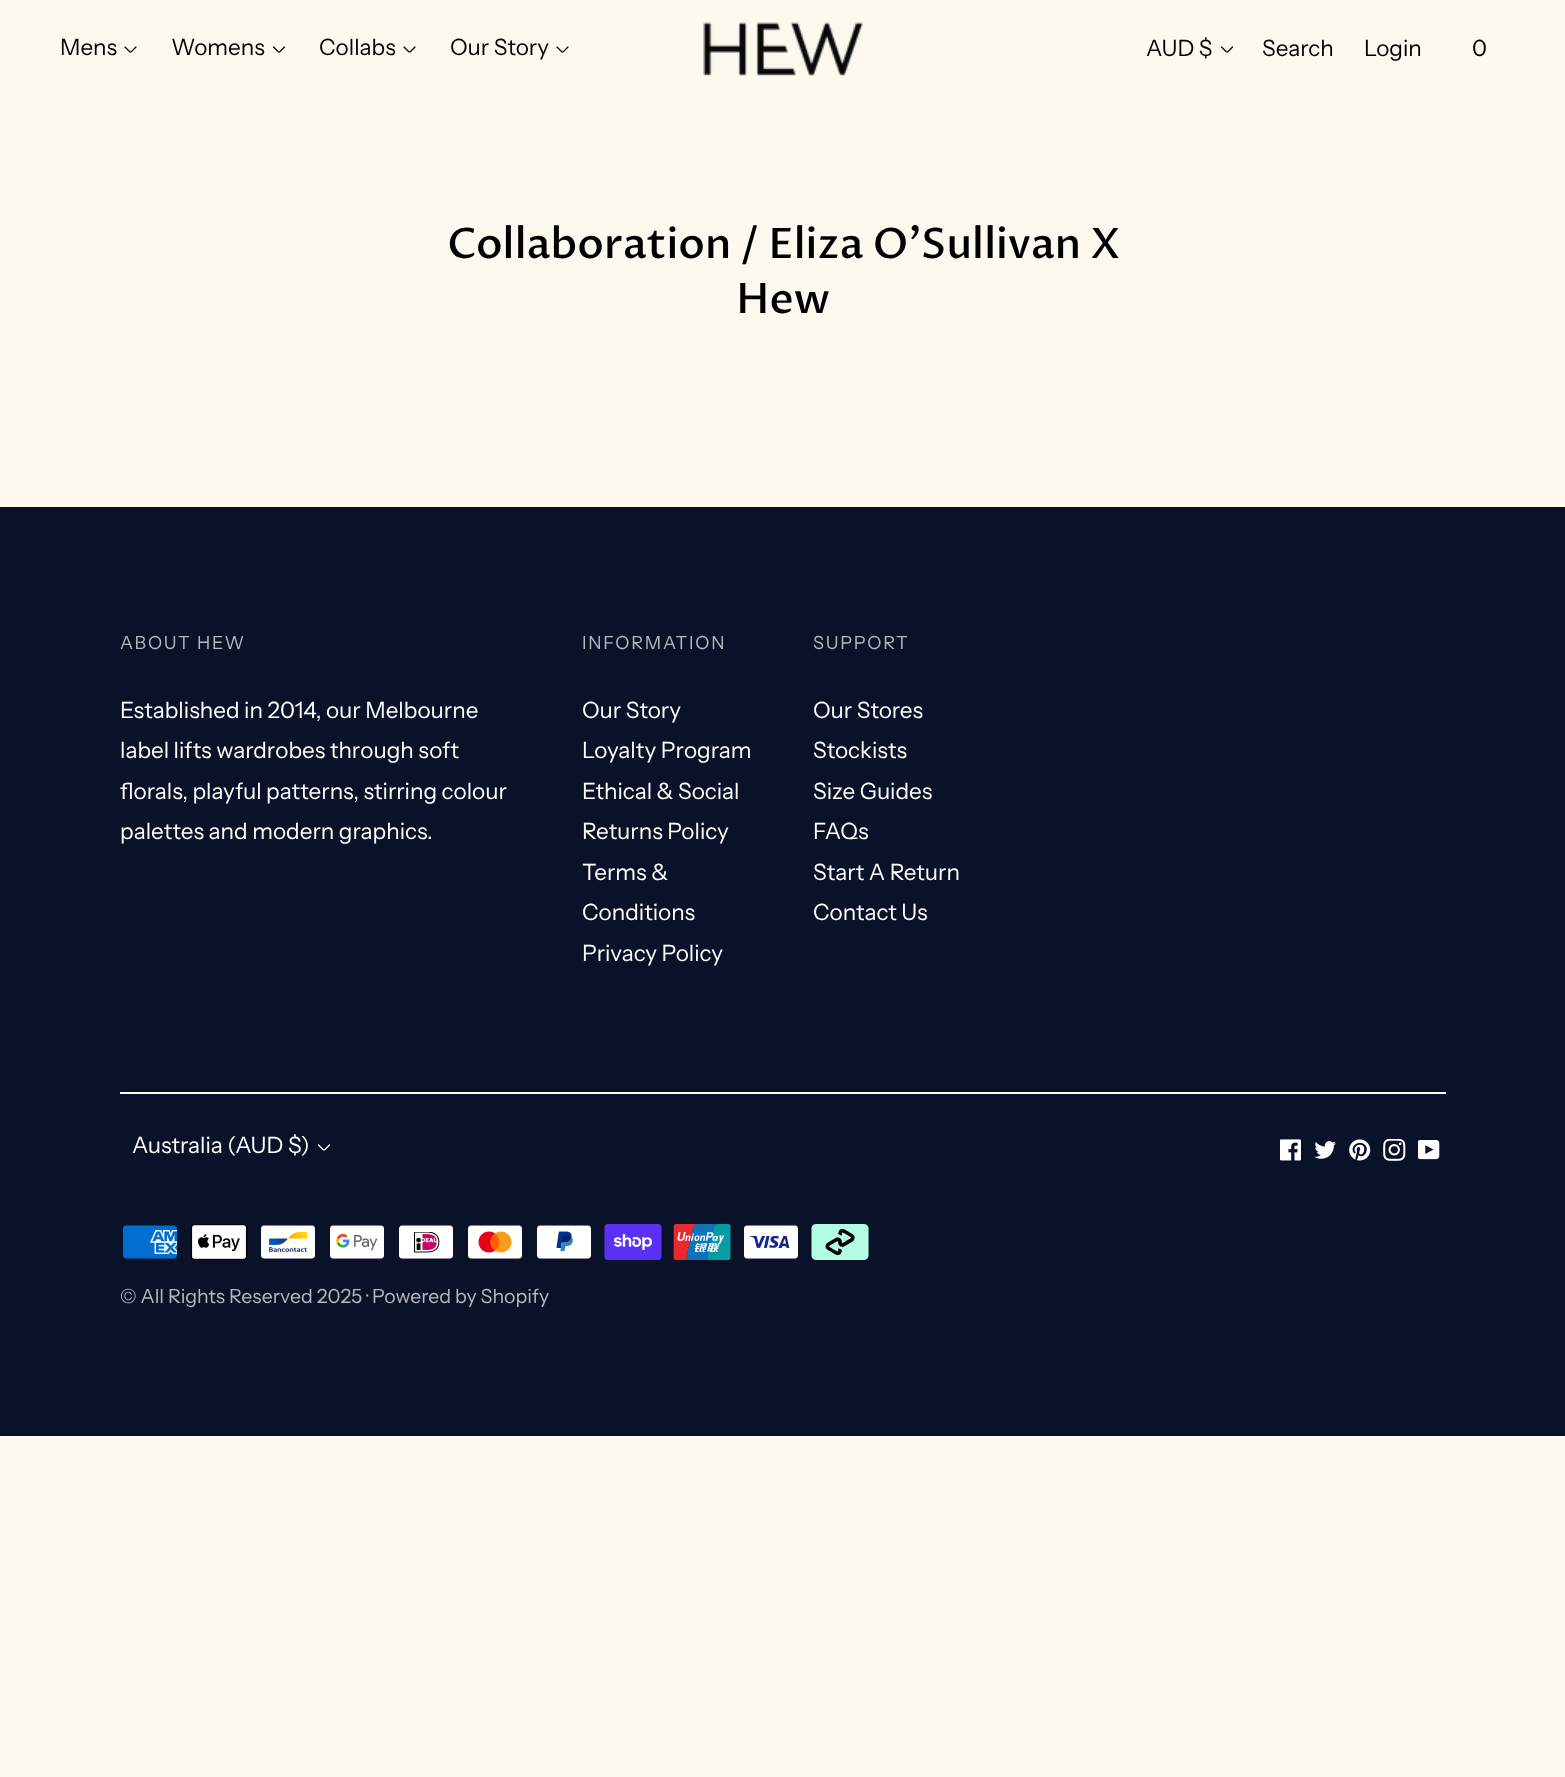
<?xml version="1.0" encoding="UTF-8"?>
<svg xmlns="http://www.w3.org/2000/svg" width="1565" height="1777">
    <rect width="100%" height="100%" fill="#FEF9EF"/>
    <text x="60" y="55" font-family="Instrument Sans" font-size="22.5" fill="#000000">Mens</text>
    <path d="M 125 47 L 130 52 H 131 L 136 47" fill="none" stroke="#000000" stroke-width="1.2" stroke-linecap="round" stroke-linejoin="round"/>
    <text x="171" y="55" font-family="Instrument Sans" font-size="22.5" fill="#000000">Womens</text>
    <path d="M 273.5 47 L 278.5 52 H 279.5 L 284.5 47" fill="none" stroke="#000000" stroke-width="1.2" stroke-linecap="round" stroke-linejoin="round"/>
    <text x="319" y="55" font-family="Instrument Sans" font-size="22.5" fill="#000000">Collabs</text>
    <path d="M 404 47 L 409 52 H 410 L 415 47" fill="none" stroke="#000000" stroke-width="1.2" stroke-linecap="round" stroke-linejoin="round"/>
    <text x="450" y="55" font-family="Instrument Sans" font-size="22.5" fill="#000000">Our Story</text>
    <path d="M 557 47 L 562 52 H 563 L 568 47" fill="none" stroke="#000000" stroke-width="1.2" stroke-linecap="round" stroke-linejoin="round"/>
    <image x="703" y="22" width="160" height="54" href="img_01.png"/>
    <text x="1146" y="56" font-family="Instrument Sans" font-size="22.5" fill="#000000">AUD $</text>
    <path d="M 1221.5 47 L 1226.5 52 H 1227.5 L 1232.5 47" fill="none" stroke="#000000" stroke-width="1.2" stroke-linecap="round" stroke-linejoin="round"/>
    <text x="1262" y="56" font-family="Instrument Sans" font-size="22.5" fill="#000000">Search</text>
    <text x="1364" y="56" font-family="Instrument Sans" font-size="22.5" fill="#000000">Login</text>
    <text x="1472" y="56" font-family="Instrument Sans" font-size="22.5" fill="#000000">0</text>
    <text x="447" y="258" font-family="Proza Libre" font-size="42" font-weight="500" fill="#000000">Collaboration / Eliza O'Sullivan X</text>
    <text x="736" y="313" font-family="Proza Libre" font-size="42" font-weight="500" fill="#000000">Hew</text>
    <rect x="0" y="507" width="1565" height="929" fill="#0A122A"/>
    <text x="120" y="649" font-family="Instrument Sans" font-size="18" letter-spacing="1.75" fill="#B6B8BF">ABOUT HEW</text>
    <text font-family="Instrument Sans" font-size="22.5" fill="#FFFFFF">
        <tspan x="120" y="718">Established in 2014, our Melbourne</tspan>
        <tspan x="120" y="758">label lifts wardrobes through soft</tspan>
        <tspan x="120" y="799">florals, playful patterns, stirring colour</tspan>
        <tspan x="120" y="839">palettes and modern graphics.</tspan>
    </text>
    <text x="582" y="649" font-family="Instrument Sans" font-size="18" letter-spacing="1.75" fill="#B6B8BF">INFORMATION</text>
    <text font-family="Instrument Sans" font-size="22.5" fill="#FFFFFF">
        <tspan x="582" y="718">Our Story</tspan>
        <tspan x="582" y="758">Loyalty Program</tspan>
        <tspan x="582" y="799">Ethical &amp; Social</tspan>
        <tspan x="582" y="839">Returns Policy</tspan>
        <tspan x="582" y="880">Terms &amp;</tspan>
        <tspan x="582" y="920">Conditions</tspan>
        <tspan x="582" y="961">Privacy Policy</tspan>
    </text>
    <text x="813" y="649" font-family="Instrument Sans" font-size="18" letter-spacing="1.75" fill="#B6B8BF">SUPPORT</text>
    <text font-family="Instrument Sans" font-size="22.5" fill="#FFFFFF">
        <tspan x="813" y="718">Our Stores</tspan>
        <tspan x="813" y="758">Stockists</tspan>
        <tspan x="813" y="799">Size Guides</tspan>
        <tspan x="813" y="839">FAQs</tspan>
        <tspan x="813" y="880">Start A Return</tspan>
        <tspan x="813" y="920">Contact Us</tspan>
    </text>
    <rect x="120" y="1092" width="1326" height="2" fill="#FFFFFF"/>
    <text x="132" y="1153" font-family="Instrument Sans" font-size="22.5" fill="#FFFFFF">Australia (AUD $)</text>
    <path d="M 318.5 1145 L 323.5 1150 H 324.5 L 329.5 1145" fill="none" stroke="#FFFFFF" stroke-width="1.2" stroke-linecap="round" stroke-linejoin="round"/>
    <image x="1280" y="1139" width="21" height="22" href="img_02.png"/>
    <image x="1314" y="1141" width="22" height="18" href="img_03.png"/>
    <image x="1349" y="1139" width="22" height="22" href="img_04.png"/>
    <image x="1383" y="1139" width="23" height="22" href="img_05.png"/>
    <image x="1418" y="1140" width="22" height="20" href="img_06.png"/>
    <image x="123" y="1225" width="54" height="34" href="img_07.png"/>
    <image x="190" y="1224" width="58" height="36" href="img_08.png"/>
    <image x="261" y="1225" width="54" height="34" href="img_09.png"/>
    <image x="330" y="1225" width="54" height="34" href="img_10.png"/>
    <image x="399" y="1225" width="54" height="34" href="img_11.png"/>
    <image x="468" y="1225" width="54" height="34" href="img_12.png"/>
    <image x="537" y="1225" width="54" height="34" href="img_13.png"/>
    <image x="604" y="1224" width="58" height="36" href="img_14.png"/>
    <image x="673" y="1224" width="58" height="36" href="img_15.png"/>
    <image x="744" y="1225" width="54" height="34" href="img_16.png"/>
    <image x="811" y="1224" width="58" height="36" href="img_17.png"/>
    <text x="120" y="1303" font-family="Instrument Sans" font-size="19.5" fill="#B6B8BF">© All Rights Reserved 2025 · Powered by Shopify</text>
</svg>
